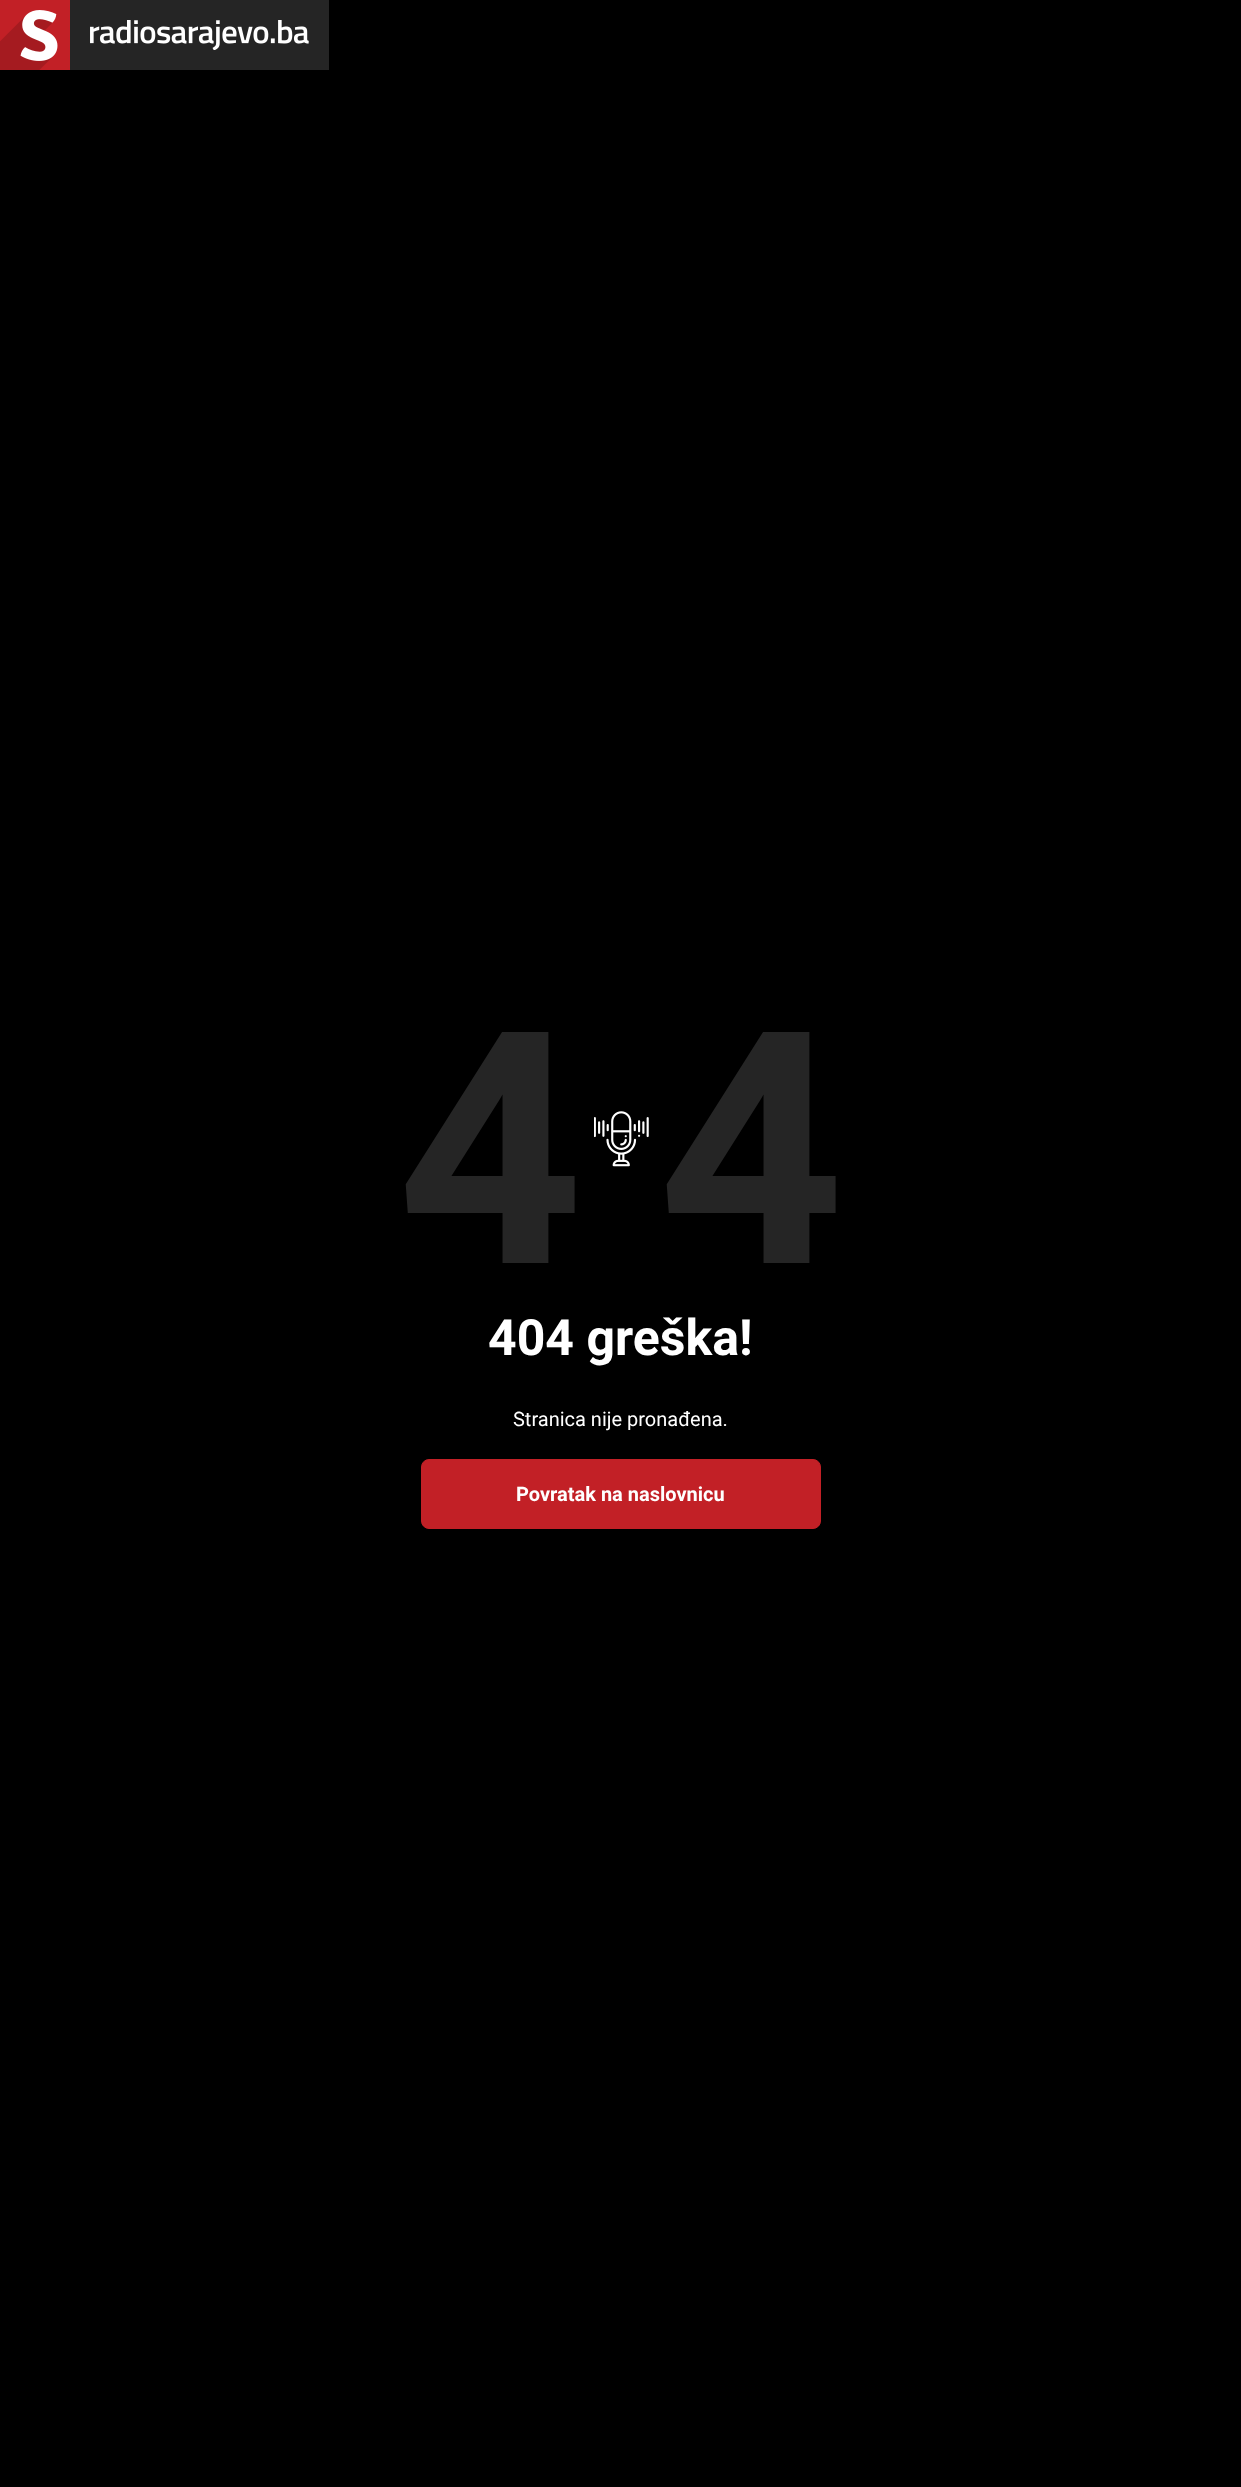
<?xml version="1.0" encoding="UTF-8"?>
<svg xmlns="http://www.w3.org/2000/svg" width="1241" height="2487">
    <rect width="100%" height="100%" fill="#000000"/>
    <rect x="0" y="0" width="70" height="70" fill="#C22026"/>
    <image x="0" y="10" width="58" height="60" href="img_01.png"/>
    <rect x="70" y="0" width="259" height="70" fill="#252525"/>
    <image x="90" y="20" width="219" height="30" href="img_02.png"/>
    <text x="397" y="1263" font-family="Roboto" font-size="325" font-weight="700" fill="#252525">4</text>
    <image x="594" y="1111" width="55" height="56" href="img_03.png"/>
    <text x="658" y="1263" font-family="Roboto" font-size="325" font-weight="700" fill="#252525">4</text>
    <text x="488" y="1355" font-family="Roboto" font-size="50" font-weight="700" fill="#FFFFFF">404 greška!</text>
    <text x="513" y="1426" font-family="Roboto" font-size="20" fill="#FFFFFF">Stranica nije pronađena.</text>
    <rect x="421.5" y="1459.5" width="399" height="69" rx="7.5" fill="#C22026" stroke="#C22026"/>
    <text x="516" y="1501" font-family="Roboto" font-size="20" font-weight="700" fill="#FFFFFF">Povratak na naslovnicu</text>
</svg>
